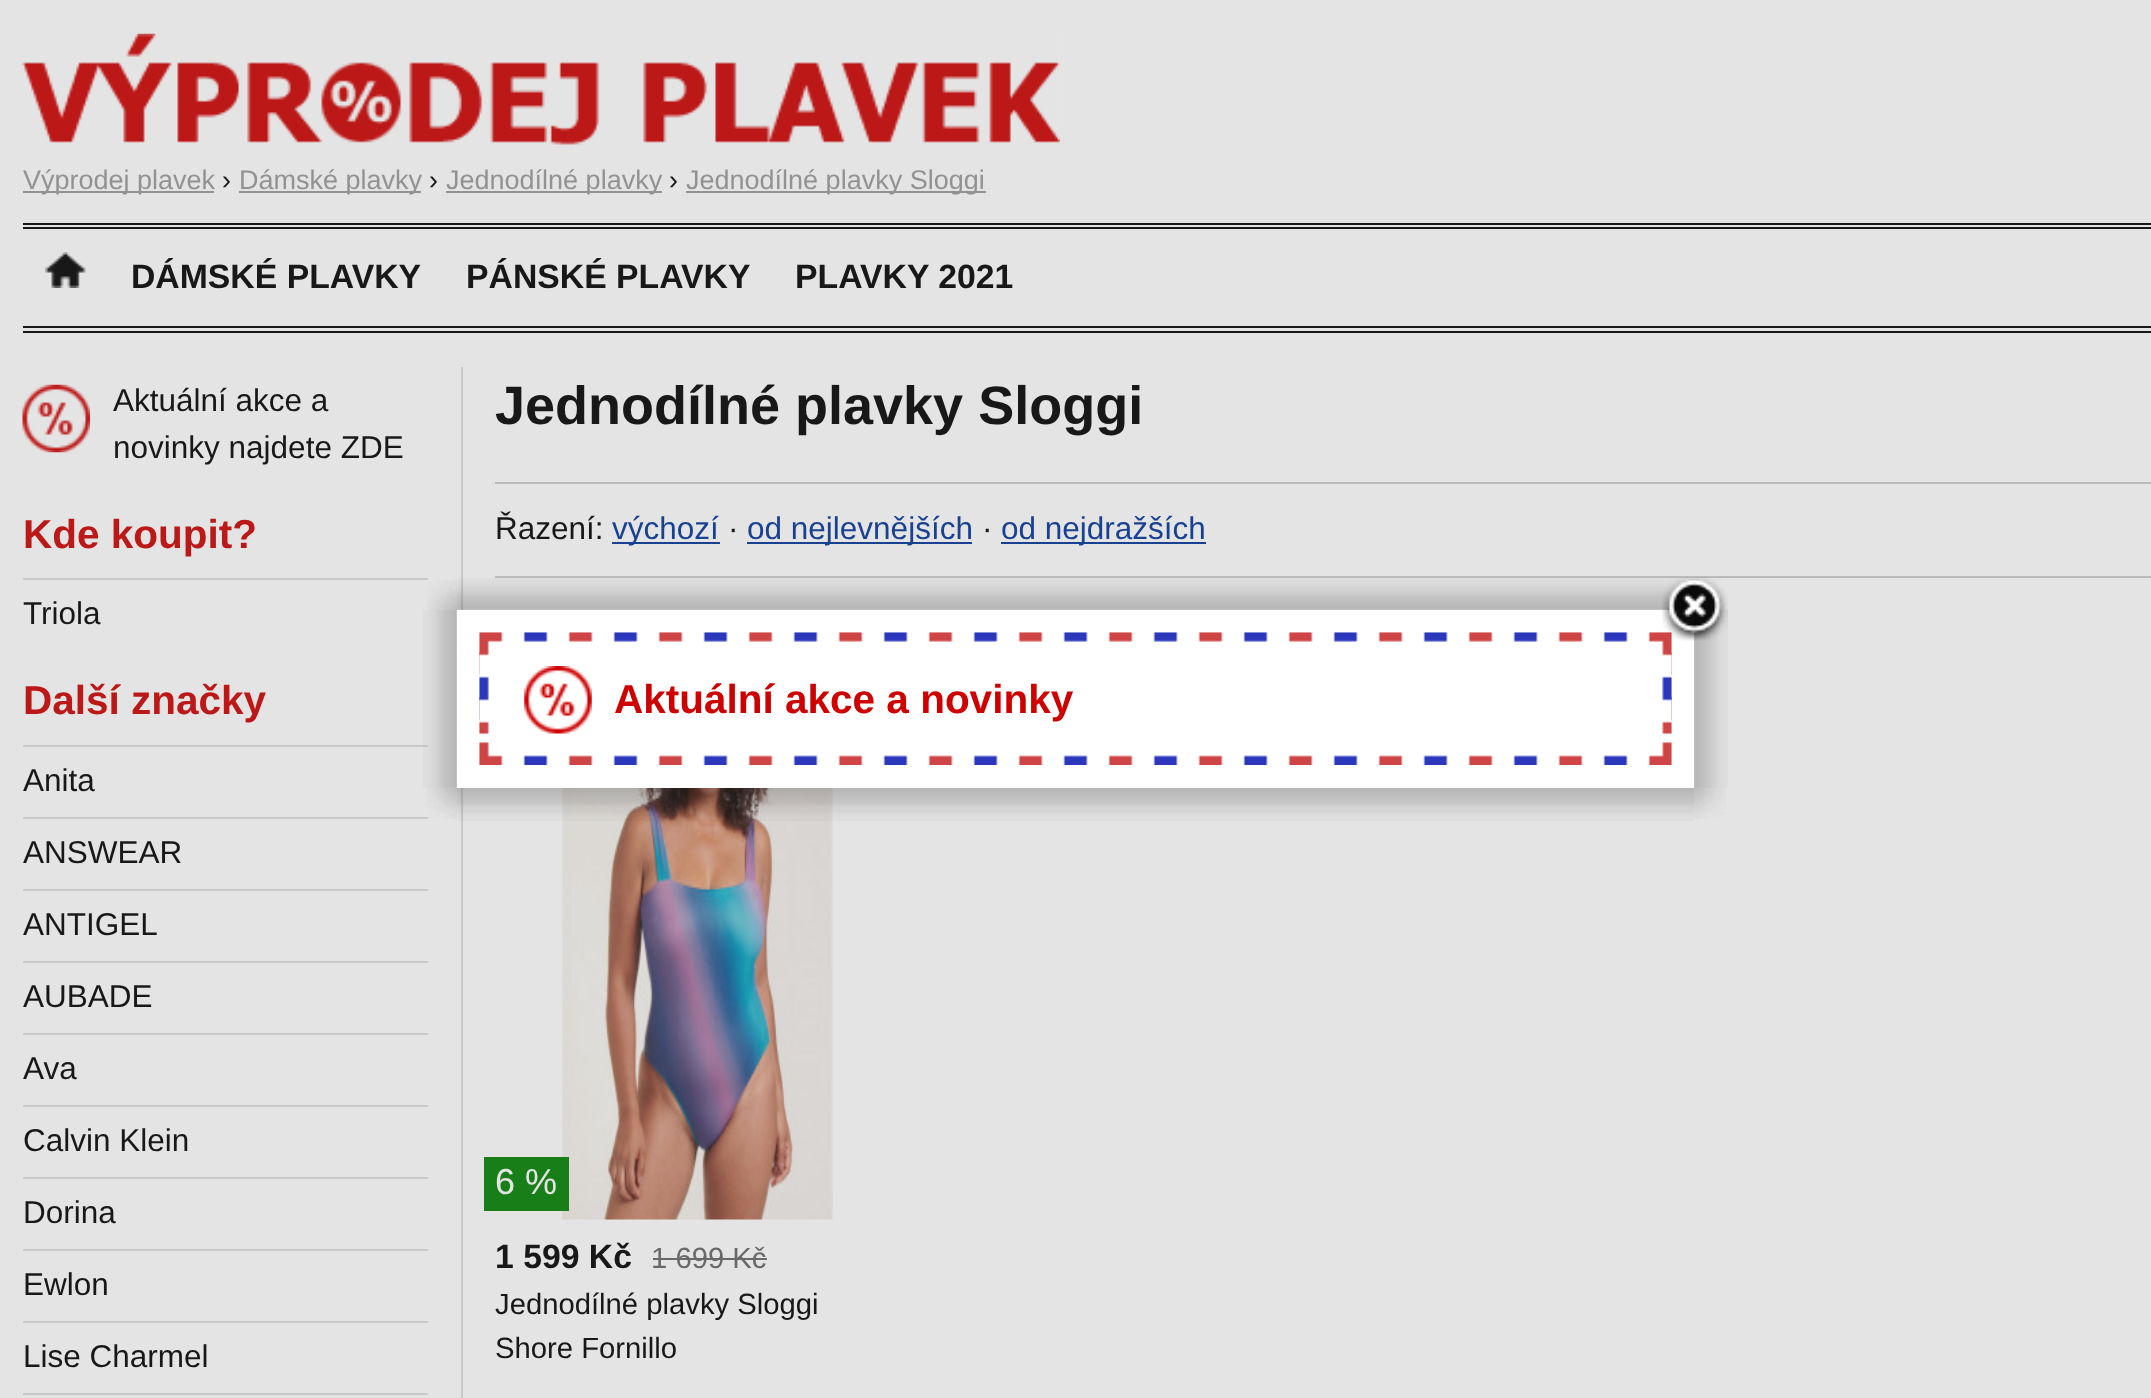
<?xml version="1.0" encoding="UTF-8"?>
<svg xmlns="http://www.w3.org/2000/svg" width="2151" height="1398">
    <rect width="100%" height="100%" fill="#E4E4E4"/>
    <rect x="23" y="223" width="2128" height="2" fill="#181818"/>
    <rect x="23" y="227" width="2128" height="2" fill="#181818"/>
    <image x="22" y="33" width="1038" height="112" href="img_01.png"/>
    <rect x="23" y="191" width="191" height="2" fill="#929292"/>
    <text x="23" y="189" font-family="Liberation Sans" font-size="27" fill="#929292">Výprodej plavek</text>
    <text x="222" y="189" font-family="Liberation Sans" font-size="27" fill="#181818">›</text>
    <rect x="239" y="191" width="182" height="2" fill="#929292"/>
    <text x="239" y="189" font-family="Liberation Sans" font-size="27" fill="#929292">Dámské plavky</text>
    <text x="429" y="189" font-family="Liberation Sans" font-size="27" fill="#181818">›</text>
    <rect x="446" y="191" width="216" height="2" fill="#929292"/>
    <text x="446" y="189" font-family="Liberation Sans" font-size="27" fill="#929292">Jednodílné plavky</text>
    <text x="669" y="189" font-family="Liberation Sans" font-size="27" fill="#181818">›</text>
    <rect x="686" y="191" width="300" height="2" fill="#929292"/>
    <text x="686" y="189" font-family="Liberation Sans" font-size="27" fill="#929292">Jednodílné plavky Sloggi</text>
    <rect x="23" y="326" width="2128" height="2" fill="#181818"/>
    <rect x="23" y="331" width="2128" height="2" fill="#181818"/>
    <image x="45" y="252" width="41" height="36" href="img_02.png"/>
    <text x="131" y="288" font-family="Liberation Sans" font-size="33.75" font-weight="700" fill="#181818">DÁMSKÉ PLAVKY</text>
    <text x="466" y="288" font-family="Liberation Sans" font-size="33.75" font-weight="700" fill="#181818">PÁNSKÉ PLAVKY</text>
    <text x="795" y="288" font-family="Liberation Sans" font-size="33.75" font-weight="700" fill="#181818">PLAVKY 2021</text>
    <rect x="461" y="367" width="2" height="1031" fill="#C9C9C9"/>
    <image x="22" y="384" width="68" height="69" href="img_03.png"/>
    <text font-family="Liberation Sans" font-size="31.5" fill="#181818">
        <tspan x="113" y="411">Aktuální akce a</tspan>
        <tspan x="113" y="458">novinky najdete ZDE</tspan>
    </text>
    <text x="23" y="548" font-family="Liberation Sans" font-size="40.5" font-weight="700" fill="#BD1818">Kde koupit?</text>
    <rect x="23" y="578" width="405" height="2" fill="#C9C9C9"/>
    <text x="23" y="624" font-family="Liberation Sans" font-size="31.5" fill="#181818">Triola</text>
    <text x="23" y="714" font-family="Liberation Sans" font-size="40.5" font-weight="700" fill="#BD1818">Další značky</text>
    <rect x="23" y="745" width="405" height="2" fill="#C9C9C9"/>
    <text x="23" y="791" font-family="Liberation Sans" font-size="31.5" fill="#181818">Anita</text>
    <rect x="23" y="817" width="405" height="2" fill="#C9C9C9"/>
    <text x="23" y="863" font-family="Liberation Sans" font-size="31.5" fill="#181818">ANSWEAR</text>
    <rect x="23" y="889" width="405" height="2" fill="#C9C9C9"/>
    <text x="23" y="935" font-family="Liberation Sans" font-size="31.5" fill="#181818">ANTIGEL</text>
    <rect x="23" y="961" width="405" height="2" fill="#C9C9C9"/>
    <text x="23" y="1007" font-family="Liberation Sans" font-size="31.5" fill="#181818">AUBADE</text>
    <rect x="23" y="1033" width="405" height="2" fill="#C9C9C9"/>
    <text x="23" y="1079" font-family="Liberation Sans" font-size="31.5" fill="#181818">Ava</text>
    <rect x="23" y="1105" width="405" height="2" fill="#C9C9C9"/>
    <text x="23" y="1151" font-family="Liberation Sans" font-size="31.5" fill="#181818">Calvin Klein</text>
    <rect x="23" y="1177" width="405" height="2" fill="#C9C9C9"/>
    <text x="23" y="1223" font-family="Liberation Sans" font-size="31.5" fill="#181818">Dorina</text>
    <rect x="23" y="1249" width="405" height="2" fill="#C9C9C9"/>
    <text x="23" y="1295" font-family="Liberation Sans" font-size="31.5" fill="#181818">Ewlon</text>
    <rect x="23" y="1321" width="405" height="2" fill="#C9C9C9"/>
    <text x="23" y="1367" font-family="Liberation Sans" font-size="31.5" fill="#181818">Lise Charmel</text>
    <rect x="23" y="1393" width="405" height="2" fill="#C9C9C9"/>
    <text x="495" y="424" font-family="Liberation Sans" font-size="54" font-weight="700" fill="#181818">Jednodílné plavky Sloggi</text>
    <rect x="495" y="482" width="1656" height="2" fill="#BBBBBB"/>
    <rect x="495" y="576" width="1656" height="2" fill="#BBBBBB"/>
    <text x="495" y="539" font-family="Liberation Sans" font-size="31.5" fill="#181818">Řazení:</text>
    <rect x="612" y="542" width="108" height="2" fill="#184192"/>
    <text x="612" y="539" font-family="Liberation Sans" font-size="31.5" fill="#184192">výchozí</text>
    <text x="728" y="539" font-family="Liberation Sans" font-size="31.5" fill="#181818">·</text>
    <rect x="747" y="542" width="225" height="2" fill="#184192"/>
    <text x="747" y="539" font-family="Liberation Sans" font-size="31.5" fill="#184192">od nejlevnějších</text>
    <text x="982" y="539" font-family="Liberation Sans" font-size="31.5" fill="#181818">·</text>
    <rect x="1001" y="542" width="205" height="2" fill="#184192"/>
    <text x="1001" y="539" font-family="Liberation Sans" font-size="31.5" fill="#184192">od nejdražších</text>
    <image x="561" y="788" width="272" height="432" href="img_04.png"/>
    <rect x="484" y="1157" width="85" height="54" fill="#187E18"/>
    <text x="495" y="1194" font-family="Liberation Sans" font-size="36" fill="#E4E4E4">6 %</text>
    <text x="495" y="1268" font-family="Liberation Sans" font-size="33.75" font-weight="700" fill="#181818">1 599 Kč</text>
    <text x="651" y="1268" font-family="Liberation Sans" font-size="29.25" fill="#696969">1 699 Kč</text>
    <rect x="653" y="1258" width="114" height="2" fill="#696969"/>
    <text font-family="Liberation Sans" font-size="29.25" fill="#181818">
        <tspan x="495" y="1314">Jednodílné plavky Sloggi</tspan>
        <tspan x="495" y="1358">Shore Fornillo</tspan>
    </text>
    <image x="456" y="578" width="1239" height="32" href="img_07.png"/>
    <image x="1694" y="577" width="31" height="33" href="img_08.png"/>
    <image x="1694" y="609" width="34" height="179" href="img_13.png"/>
    <image x="1694" y="787" width="32" height="32" href="img_16.png"/>
    <image x="456" y="787" width="1239" height="34" href="img_15.png"/>
    <rect x="468.5" y="621.5" width="1214" height="155" fill="none" stroke="#FFFFFF" stroke-width="23"/>
    <image x="479" y="652" width="1193" height="113" href="img_10.png"/>
    <image x="479" y="632" width="1193" height="102" href="img_11.png"/>
    <image x="1662" y="577" width="66" height="64" href="img_05.png"/>
    <image x="426" y="787" width="31" height="32" href="img_14.png"/>
    <image x="423" y="609" width="34" height="179" href="img_09.png"/>
    <image x="427" y="580" width="30" height="30" href="img_06.png"/>
    <image x="524" y="666" width="68" height="68" href="img_12.png"/>
    <text x="614" y="713" font-family="Liberation Sans" font-size="40.5" font-weight="700" fill="#CF0000">Aktuální akce a novinky</text>
</svg>
